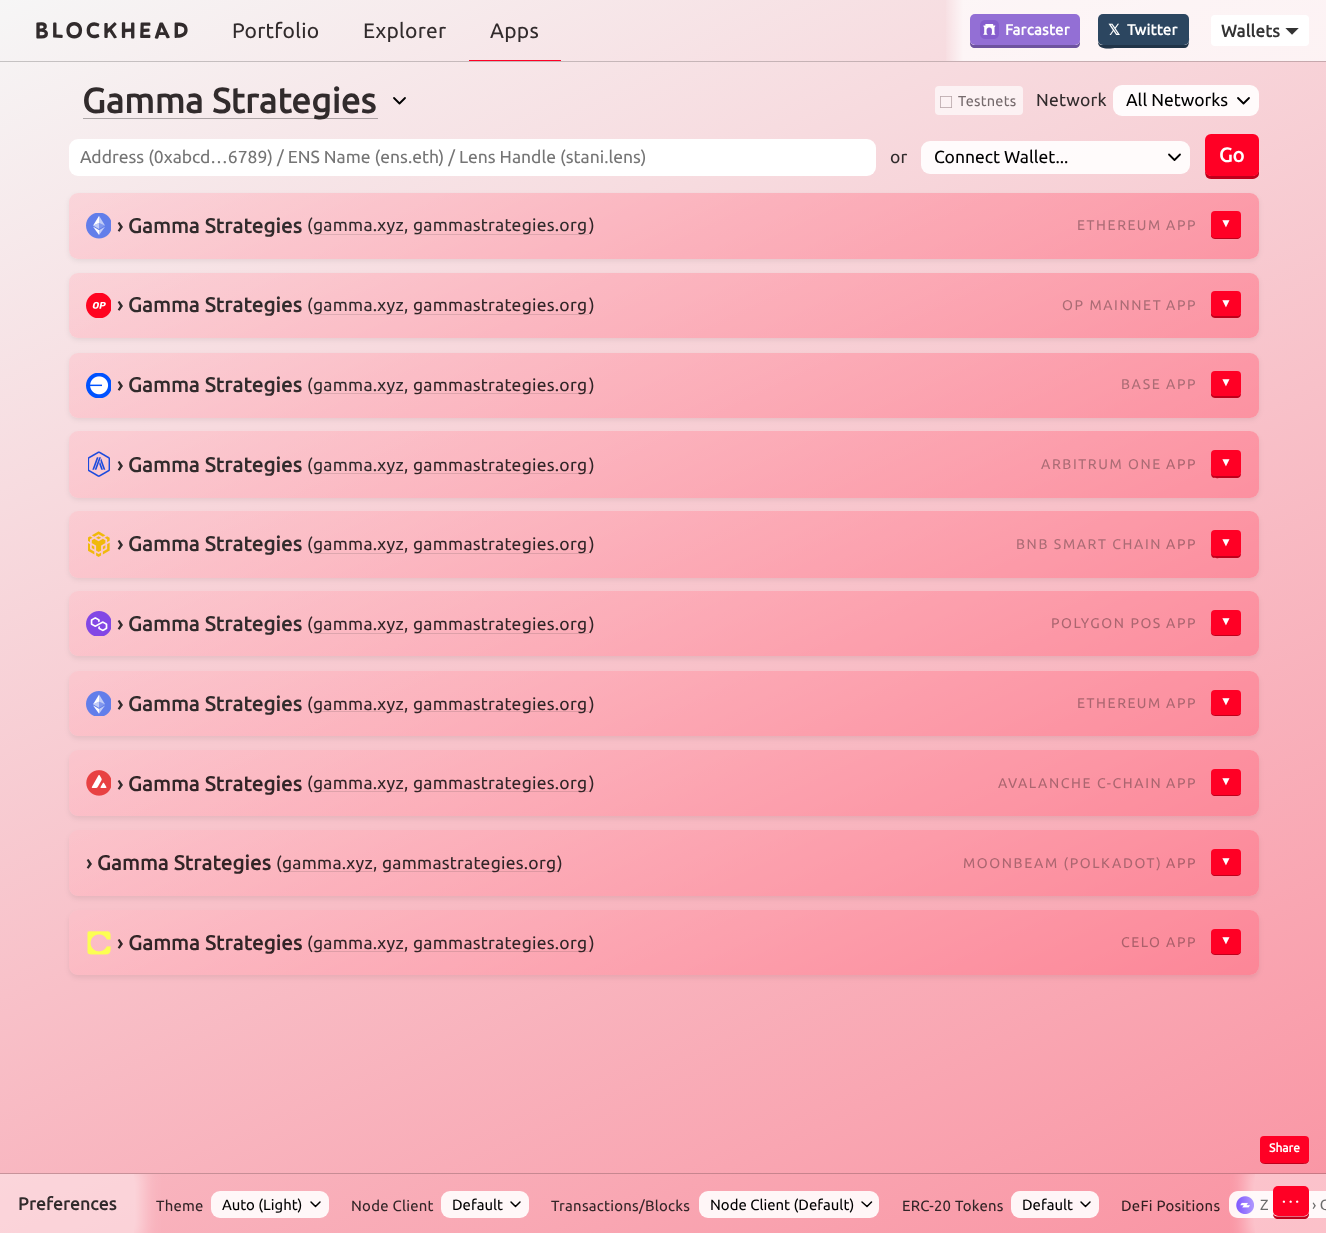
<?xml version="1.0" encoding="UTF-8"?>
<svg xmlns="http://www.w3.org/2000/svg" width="1326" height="1233">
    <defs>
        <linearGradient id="g1" gradientUnits="userSpaceOnUse" x1="308" y1="-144" x2="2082" y2="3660"><stop offset="0" stop-color="#F6F6F6"/><stop offset="1" stop-color="#FF0025"/></linearGradient>
        <linearGradient id="g2" gradientUnits="userSpaceOnUse" x1="308" y1="-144" x2="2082" y2="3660"><stop offset="0" stop-color="#C5C5C5"/><stop offset="1" stop-color="#CC001E"/></linearGradient>
        <linearGradient id="g3" gradientUnits="userSpaceOnUse" x1="308" y1="-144" x2="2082" y2="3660"><stop offset="0" stop-color="#ABABAB"/><stop offset="1" stop-color="#B0142B"/></linearGradient>
        <linearGradient id="g4" gradientUnits="userSpaceOnUse" x1="944" y1="31" x2="1326" y2="31"><stop offset="0" stop-color="#FFFFFF" stop-opacity="0"/><stop offset="0.05" stop-color="#FFFFFF" stop-opacity="0.72"/></linearGradient>
        <clipPath id="clip1"><path d="M 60 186 H 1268 V 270 H 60 Z M 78 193 H 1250 C 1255 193 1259 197 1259 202 V 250 C 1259 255 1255 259 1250 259 H 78 C 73 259 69 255 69 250 V 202 C 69 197 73 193 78 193 Z" clip-rule="evenodd"/></clipPath>
        <filter id="blur1" x="-50%" y="-200%" width="200%" height="500%"><feGaussianBlur stdDeviation="2.5"/></filter>
        <linearGradient id="g5" gradientUnits="userSpaceOnUse" x1="545" y1="-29" x2="783" y2="481"><stop offset="0" stop-color="#FF0025" stop-opacity="0.12"/><stop offset="1" stop-color="#FF0025" stop-opacity="0.33"/></linearGradient>
        <clipPath id="clip2"><path d="M 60 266 H 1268 V 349 H 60 Z M 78 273 H 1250 C 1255 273 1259 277 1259 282 V 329 C 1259 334 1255 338 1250 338 H 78 C 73 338 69 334 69 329 V 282 C 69 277 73 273 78 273 Z" clip-rule="evenodd"/></clipPath>
        <linearGradient id="g6" gradientUnits="userSpaceOnUse" x1="545" y1="50" x2="782" y2="560"><stop offset="0" stop-color="#FF0025" stop-opacity="0.12"/><stop offset="1" stop-color="#FF0025" stop-opacity="0.33"/></linearGradient>
        <clipPath id="clip3"><path d="M 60 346 H 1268 V 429 H 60 Z M 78 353 H 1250 C 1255 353 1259 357 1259 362 V 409 C 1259 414 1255 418 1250 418 H 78 C 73 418 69 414 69 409 V 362 C 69 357 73 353 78 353 Z" clip-rule="evenodd"/></clipPath>
        <linearGradient id="g7" gradientUnits="userSpaceOnUse" x1="545" y1="130" x2="782" y2="640"><stop offset="0" stop-color="#FF0025" stop-opacity="0.12"/><stop offset="1" stop-color="#FF0025" stop-opacity="0.33"/></linearGradient>
        <clipPath id="clip4"><path d="M 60 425 H 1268 V 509 H 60 Z M 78 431 H 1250 C 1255 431 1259 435 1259 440 V 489 C 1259 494 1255 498 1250 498 H 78 C 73 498 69 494 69 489 V 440 C 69 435 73 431 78 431 Z" clip-rule="evenodd"/></clipPath>
        <linearGradient id="g8" gradientUnits="userSpaceOnUse" x1="545" y1="209" x2="783" y2="719"><stop offset="0" stop-color="#FF0025" stop-opacity="0.12"/><stop offset="1" stop-color="#FF0025" stop-opacity="0.33"/></linearGradient>
        <clipPath id="clip5"><path d="M 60 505 H 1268 V 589 H 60 Z M 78 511 H 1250 C 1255 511 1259 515 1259 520 V 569 C 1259 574 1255 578 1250 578 H 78 C 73 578 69 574 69 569 V 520 C 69 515 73 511 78 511 Z" clip-rule="evenodd"/></clipPath>
        <linearGradient id="g9" gradientUnits="userSpaceOnUse" x1="545" y1="289" x2="783" y2="799"><stop offset="0" stop-color="#FF0025" stop-opacity="0.12"/><stop offset="1" stop-color="#FF0025" stop-opacity="0.33"/></linearGradient>
        <clipPath id="clip6"><path d="M 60 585 H 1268 V 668 H 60 Z M 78 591 H 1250 C 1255 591 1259 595 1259 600 V 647 C 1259 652 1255 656 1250 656 H 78 C 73 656 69 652 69 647 V 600 C 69 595 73 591 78 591 Z" clip-rule="evenodd"/></clipPath>
        <linearGradient id="g10" gradientUnits="userSpaceOnUse" x1="545" y1="369" x2="782" y2="878"><stop offset="0" stop-color="#FF0025" stop-opacity="0.12"/><stop offset="1" stop-color="#FF0025" stop-opacity="0.33"/></linearGradient>
        <clipPath id="clip7"><path d="M 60 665 H 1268 V 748 H 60 Z M 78 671 H 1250 C 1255 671 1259 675 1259 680 V 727 C 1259 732 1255 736 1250 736 H 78 C 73 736 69 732 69 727 V 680 C 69 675 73 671 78 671 Z" clip-rule="evenodd"/></clipPath>
        <linearGradient id="g11" gradientUnits="userSpaceOnUse" x1="545" y1="449" x2="782" y2="958"><stop offset="0" stop-color="#FF0025" stop-opacity="0.12"/><stop offset="1" stop-color="#FF0025" stop-opacity="0.33"/></linearGradient>
        <clipPath id="clip8"><path d="M 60 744 H 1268 V 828 H 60 Z M 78 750 H 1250 C 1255 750 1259 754 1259 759 V 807 C 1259 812 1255 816 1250 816 H 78 C 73 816 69 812 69 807 V 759 C 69 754 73 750 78 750 Z" clip-rule="evenodd"/></clipPath>
        <linearGradient id="g12" gradientUnits="userSpaceOnUse" x1="545" y1="528" x2="783" y2="1038"><stop offset="0" stop-color="#FF0025" stop-opacity="0.12"/><stop offset="1" stop-color="#FF0025" stop-opacity="0.33"/></linearGradient>
        <clipPath id="clip9"><path d="M 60 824 H 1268 V 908 H 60 Z M 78 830 H 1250 C 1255 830 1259 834 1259 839 V 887 C 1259 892 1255 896 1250 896 H 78 C 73 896 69 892 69 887 V 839 C 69 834 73 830 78 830 Z" clip-rule="evenodd"/></clipPath>
        <linearGradient id="g13" gradientUnits="userSpaceOnUse" x1="545" y1="608" x2="783" y2="1118"><stop offset="0" stop-color="#FF0025" stop-opacity="0.12"/><stop offset="1" stop-color="#FF0025" stop-opacity="0.33"/></linearGradient>
        <clipPath id="clip10"><path d="M 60 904 H 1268 V 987 H 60 Z M 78 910 H 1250 C 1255 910 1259 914 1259 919 V 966 C 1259 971 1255 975 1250 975 H 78 C 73 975 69 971 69 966 V 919 C 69 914 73 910 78 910 Z" clip-rule="evenodd"/></clipPath>
        <linearGradient id="g14" gradientUnits="userSpaceOnUse" x1="545" y1="688" x2="782" y2="1197"><stop offset="0" stop-color="#FF0025" stop-opacity="0.12"/><stop offset="1" stop-color="#FF0025" stop-opacity="0.33"/></linearGradient>
        <clipPath id="clip11"><rect x="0" y="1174" width="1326" height="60"/></clipPath>
        <clipPath id="clip12"><path d="M 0 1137 H 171 V 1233 H 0 Z M 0 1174 H 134 V 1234 H 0 Z" clip-rule="evenodd"/></clipPath>
        <filter id="blur2" x="-50%" y="-200%" width="200%" height="500%"><feGaussianBlur stdDeviation="9"/></filter>
        <clipPath id="clip13"><rect x="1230" y="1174" width="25" height="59"/></clipPath>
    </defs>
    <rect width="100%" height="100%" fill="#FFFFFF"/>
    <rect x="0" y="0" width="1326" height="1233" fill="url(#g1)"/>
    <rect x="0" y="1173" width="1326" height="1" fill="url(#g2)"/>
    <rect x="0" y="61" width="1326" height="1" fill="url(#g2)"/>
    <rect x="83" y="118" width="295" height="1" fill="url(#g3)"/>
    <text x="35" y="38" font-family="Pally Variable" font-size="23" font-weight="700" letter-spacing="3.25" fill="#312B2C">BLOCKHEAD</text>
    <text x="232" y="38" font-family="Ubuntu" font-size="21" letter-spacing="0.25" fill="#312B2C">Portfolio</text>
    <text x="363" y="38" font-family="Ubuntu" font-size="21" letter-spacing="0.25" fill="#312B2C">Explorer</text>
    <text x="490" y="38" font-family="Ubuntu" font-size="21" letter-spacing="0.25" fill="#312B2C">Apps</text>
    <rect x="469" y="60" width="92" height="1" fill="#FF0025"/>
    <rect x="946" y="0" width="380" height="61" fill="url(#g4)"/>
    <path d="M 970 40 V 43 C 970 46 972 48 975 48 H 1075 C 1078 48 1080 46 1080 43 V 40 C 1080 43 1078 45 1075 45 H 975 C 972 45 970 43 970 40 Z" fill="#936FD5"/>
    <path d="M 970 40 V 43 C 970 46 972 48 975 48 H 1075 C 1078 48 1080 46 1080 43 V 40 C 1080 43 1078 45 1075 45 H 975 C 972 45 970 43 970 40 Z" fill="#000000" fill-opacity="0.25"/>
    <rect x="970" y="14" width="110" height="31" rx="5" fill="#936FD5"/>
    <image x="980" y="20" width="19" height="19" href="img_01.png"/>
    <text x="1005" y="35" font-family="Ubuntu" font-size="15" font-weight="700" letter-spacing="0.25" fill="#FFFFFF">Farcaster</text>
    <path d="M 1098 42 C 1098 51 1112 48 1116 48 H 1184 C 1190 48 1189 40 1189 36 V 19 V 40 C 1189 43 1187 45 1184 45 H 1102 C 1100 45 1099 44 1098 42 Z" fill="#2C4660"/>
    <path d="M 1098 42 C 1098 51 1112 48 1116 48 H 1184 C 1190 48 1189 40 1189 36 V 19 V 40 C 1189 43 1187 45 1184 45 H 1102 C 1100 45 1099 44 1098 42 Z" fill="#000000" fill-opacity="0.25"/>
    <rect x="1098" y="14" width="91" height="31" rx="5" fill="#2C4660"/>
    <text x="1108" y="35" font-family="DejaVu Sans" font-size="15" font-weight="700" letter-spacing="0.25" fill="#FFFFFF">𝕏</text>
    <text x="1127" y="35" font-family="Ubuntu" font-size="15" font-weight="700" letter-spacing="0.25" fill="#FFFFFF">Twitter</text>
    <rect x="1211" y="15" width="98" height="31" rx="4" fill="#FFFFFF"/>
    <text x="1221" y="37" font-family="Ubuntu" font-size="17" font-weight="700" letter-spacing="0.25" fill="#333333">Wallets</text>
    <text x="1285" y="37" font-family="FreeSans" font-size="17" font-weight="700" letter-spacing="0.25" fill="#333333">⏷</text>
    <text x="82" y="113" font-family="Ubuntu" font-size="35" font-weight="700" letter-spacing="0.25" fill="#312B2C">Gamma Strategies</text>
    <path d="M 394 98 L 399.5 103.5 L 405 98" fill="none" stroke="#000000" stroke-width="1.8" stroke-linecap="round" stroke-linejoin="round"/>
    <rect x="935" y="86" width="88" height="29" rx="4" fill="#FFFFFF" fill-opacity="0.66"/>
    <text x="940" y="108" font-family="Liberation Sans" font-size="20" letter-spacing="0.25" fill="#B6A4A7">□</text>
    <text x="958" y="106" font-family="Ubuntu" font-size="14.5" letter-spacing="0.25" fill="#766B6D">Testnets</text>
    <text x="1036" y="106" font-family="Ubuntu" font-size="17.5" letter-spacing="0.25" fill="#312B2C">Network</text>
    <rect x="1113" y="85" width="146" height="31" rx="9" fill="#FFFFFF" fill-opacity="0.9"/>
    <path d="M 1238 98 L 1243.5 103.5 L 1249 98" fill="none" stroke="#000000" stroke-width="1.8" stroke-linecap="round" stroke-linejoin="round"/>
    <text x="1126" y="106" font-family="Ubuntu" font-size="17.5" fill="#000000">All Networks</text>
    <rect x="69" y="139" width="807" height="37" rx="9" fill="#FFFFFF" fill-opacity="0.98"/>
    <text x="80" y="163" font-family="Ubuntu" font-size="17.5" fill="#757575">Address (0xabcd…6789) / ENS Name (ens.eth) / Lens Handle (stani.lens)</text>
    <text x="890" y="163" font-family="Ubuntu" font-size="17.5" letter-spacing="0.25" fill="#312B2C">or</text>
    <rect x="921" y="141" width="269" height="33" rx="9" fill="#FFFFFF" fill-opacity="0.9"/>
    <path d="M 1169 154.5 L 1174.5 160 L 1180 154.5" fill="none" stroke="#000000" stroke-width="1.8" stroke-linecap="round" stroke-linejoin="round"/>
    <text x="934" y="163" font-family="Ubuntu" font-size="17.5" fill="#000000">Connect Wallet...</text>
    <path d="M 1205 169 C 1205 180 1208 179 1218 179 H 1246 C 1250 179 1258 180 1259 174 V 140 V 169 C 1259 173 1256 176 1252 176 H 1212 C 1208 176 1205 173 1205 169 Z" fill="#FF0025"/>
    <path d="M 1205 169 C 1205 180 1208 179 1218 179 H 1246 C 1250 179 1258 180 1259 174 V 140 V 169 C 1259 173 1256 176 1252 176 H 1212 C 1208 176 1205 173 1205 169 Z" fill="#000000" fill-opacity="0.25"/>
    <rect x="1205" y="134" width="54" height="42" rx="6" fill="#FF0025"/>
    <text x="1219" y="162" font-family="Ubuntu" font-size="20" font-weight="700" fill="#FFFFFF">Go</text>
    <g clip-path="url(#clip1)">
        <rect x="69" y="195" width="1190" height="66" rx="9" fill="#000000" fill-opacity="0.07" filter="url(#blur1)"/>
    </g>
    <rect x="69" y="193" width="1190" height="66" rx="9" fill="#FFFFFF" fill-opacity="0.4"/>
    <rect x="69" y="193" width="1190" height="66" rx="9" fill="url(#g5)"/>
    <image x="86" y="213" width="25" height="26" href="img_02.png"/>
    <text x="117" y="233" font-family="Ubuntu" font-size="20.5" font-weight="700" letter-spacing="0.25" fill="#312B2C">›</text>
    <text x="128" y="233" font-family="Ubuntu" font-size="20.5" font-weight="700" letter-spacing="0.25" fill="#312B2C">Gamma Strategies</text>
    <text x="307" y="231" font-family="Ubuntu" font-size="17.5" letter-spacing="0.25" fill="#312B2C">(</text>
    <rect x="313" y="234" width="92" height="1" fill="#333333" fill-opacity="0.15"/>
    <text x="313" y="231" font-family="Ubuntu" font-size="17.5" letter-spacing="0.25" fill="#312B2C">gamma.xyz</text>
    <text x="404" y="231" font-family="Ubuntu" font-size="17.5" letter-spacing="0.25" fill="#312B2C">,</text>
    <rect x="414" y="234" width="175" height="1" fill="#333333" fill-opacity="0.15"/>
    <text x="413" y="231" font-family="Ubuntu" font-size="17.5" letter-spacing="0.25" fill="#312B2C">gammastrategies.org</text>
    <text x="589" y="231" font-family="Ubuntu" font-size="17.5" letter-spacing="0.25" fill="#322527">)</text>
    <text x="1077" y="230" font-family="Ubuntu" font-size="14" letter-spacing="1.6" fill="#AB6C75">ETHEREUM</text>
    <text x="1166" y="230" font-family="Ubuntu" font-size="14" letter-spacing="1.6" fill="#AB6C75">APP</text>
    <path d="M 1211 215.5 V 220 V 236 C 1212 239.5 1216 239 1218.5 239 H 1233.5 C 1237.5 239 1241 239.5 1241 234.5 C 1240.5 236 1239 237 1237 237 H 1215.5 C 1213 237 1211 235 1211 233 Z" fill="#FF0025"/>
    <path d="M 1211 215.5 V 220 V 236 C 1212 239.5 1216 239 1218.5 239 H 1233.5 C 1237.5 239 1241 239.5 1241 234.5 C 1240.5 236 1239 237 1237 237 H 1215.5 C 1213 237 1211 235 1211 233 Z" fill="#000000" fill-opacity="0.25"/>
    <rect x="1211" y="211" width="30" height="27" rx="4" fill="#FF0025"/>
    <text x="1220" y="227" font-family="Liberation Sans" font-size="12" font-weight="700" fill="#FFFFFF">▼</text>
    <g clip-path="url(#clip2)">
        <rect x="69" y="275" width="1190" height="65" rx="9" fill="#000000" fill-opacity="0.07" filter="url(#blur1)"/>
    </g>
    <rect x="69" y="273" width="1190" height="65" rx="9" fill="#FFFFFF" fill-opacity="0.4"/>
    <rect x="69" y="273" width="1190" height="65" rx="9" fill="url(#g6)"/>
    <image x="86" y="293" width="25" height="25" href="img_03.png"/>
    <text x="117" y="312" font-family="Ubuntu" font-size="20.5" font-weight="700" letter-spacing="0.25" fill="#312B2C">›</text>
    <text x="128" y="312" font-family="Ubuntu" font-size="20.5" font-weight="700" letter-spacing="0.25" fill="#312B2C">Gamma Strategies</text>
    <text x="307" y="311" font-family="Ubuntu" font-size="17.5" letter-spacing="0.25" fill="#312B2C">(</text>
    <rect x="313" y="314" width="92" height="1" fill="#333333" fill-opacity="0.15"/>
    <text x="313" y="311" font-family="Ubuntu" font-size="17.5" letter-spacing="0.25" fill="#312B2C">gamma.xyz</text>
    <text x="404" y="311" font-family="Ubuntu" font-size="17.5" letter-spacing="0.25" fill="#312B2C">,</text>
    <rect x="414" y="314" width="175" height="1" fill="#333333" fill-opacity="0.15"/>
    <text x="413" y="311" font-family="Ubuntu" font-size="17.5" letter-spacing="0.25" fill="#322527">gammastrategies.org</text>
    <text x="589" y="311" font-family="Ubuntu" font-size="17.5" letter-spacing="0.25" fill="#322527">)</text>
    <text x="1062" y="310" font-family="Ubuntu" font-size="14" letter-spacing="1.6" fill="#AB6C75">OP MAINNET</text>
    <text x="1166" y="310" font-family="Ubuntu" font-size="14" letter-spacing="1.6" fill="#AB6C75">APP</text>
    <path d="M 1211 295.5 V 300 V 315 C 1212 318.5 1216 318 1218.5 318 H 1233.5 C 1237.5 318 1241 318.5 1241 313 C 1240.5 314.5 1239 315.5 1237 315.5 H 1215.5 C 1213 315.5 1211 314 1211 311.5 Z" fill="#FF0025"/>
    <path d="M 1211 295.5 V 300 V 315 C 1212 318.5 1216 318 1218.5 318 H 1233.5 C 1237.5 318 1241 318.5 1241 313 C 1240.5 314.5 1239 315.5 1237 315.5 H 1215.5 C 1213 315.5 1211 314 1211 311.5 Z" fill="#000000" fill-opacity="0.25"/>
    <rect x="1211" y="291" width="30" height="25" rx="4" fill="#FF0025"/>
    <text x="1220" y="307" font-family="Liberation Sans" font-size="12" font-weight="700" fill="#FFFFFF">▼</text>
    <g clip-path="url(#clip3)">
        <rect x="69" y="355" width="1190" height="65" rx="9" fill="#000000" fill-opacity="0.07" filter="url(#blur1)"/>
    </g>
    <rect x="69" y="353" width="1190" height="65" rx="9" fill="#FFFFFF" fill-opacity="0.4"/>
    <rect x="69" y="353" width="1190" height="65" rx="9" fill="url(#g7)"/>
    <image x="86" y="373" width="25" height="25" href="img_04.png"/>
    <text x="117" y="392" font-family="Ubuntu" font-size="20.5" font-weight="700" letter-spacing="0.25" fill="#312B2C">›</text>
    <text x="128" y="392" font-family="Ubuntu" font-size="20.5" font-weight="700" letter-spacing="0.25" fill="#312B2C">Gamma Strategies</text>
    <text x="307" y="391" font-family="Ubuntu" font-size="17.5" letter-spacing="0.25" fill="#312B2C">(</text>
    <rect x="313" y="393" width="92" height="1" fill="#333333" fill-opacity="0.15"/>
    <text x="313" y="391" font-family="Ubuntu" font-size="17.5" letter-spacing="0.25" fill="#312B2C">gamma.xyz</text>
    <text x="404" y="391" font-family="Ubuntu" font-size="17.5" letter-spacing="0.25" fill="#312B2C">,</text>
    <rect x="414" y="393" width="175" height="1" fill="#333333" fill-opacity="0.15"/>
    <text x="413" y="391" font-family="Ubuntu" font-size="17.5" letter-spacing="0.25" fill="#322527">gammastrategies.org</text>
    <text x="589" y="391" font-family="Ubuntu" font-size="17.5" letter-spacing="0.25" fill="#322527">)</text>
    <text x="1121" y="389" font-family="Ubuntu" font-size="14" letter-spacing="1.6" fill="#AB6C75">BASE</text>
    <text x="1166" y="389" font-family="Ubuntu" font-size="14" letter-spacing="1.6" fill="#AB6C75">APP</text>
    <path d="M 1211 375.5 V 380 V 395 C 1212 398.5 1216 398 1218.5 398 H 1233.5 C 1237.5 398 1241 398.5 1241 393 C 1240.5 394.5 1239 395.5 1237 395.5 H 1215.5 C 1213 395.5 1211 394 1211 391.5 Z" fill="#FF0025"/>
    <path d="M 1211 375.5 V 380 V 395 C 1212 398.5 1216 398 1218.5 398 H 1233.5 C 1237.5 398 1241 398.5 1241 393 C 1240.5 394.5 1239 395.5 1237 395.5 H 1215.5 C 1213 395.5 1211 394 1211 391.5 Z" fill="#000000" fill-opacity="0.25"/>
    <rect x="1211" y="371" width="30" height="25" rx="4" fill="#FF0025"/>
    <text x="1220" y="386" font-family="Liberation Sans" font-size="12" font-weight="700" fill="#FFFFFF">▼</text>
    <g clip-path="url(#clip4)">
        <rect x="69" y="434" width="1190" height="66" rx="9" fill="#000000" fill-opacity="0.07" filter="url(#blur1)"/>
    </g>
    <rect x="69" y="431" width="1190" height="67" rx="9" fill="#FFFFFF" fill-opacity="0.4"/>
    <rect x="69" y="431" width="1190" height="67" rx="9" fill="url(#g8)"/>
    <image x="88" y="451" width="22" height="26" href="img_05.png"/>
    <text x="117" y="472" font-family="Ubuntu" font-size="20.5" font-weight="700" letter-spacing="0.25" fill="#312B2C">›</text>
    <text x="128" y="472" font-family="Ubuntu" font-size="20.5" font-weight="700" letter-spacing="0.25" fill="#312B2C">Gamma Strategies</text>
    <text x="307" y="471" font-family="Ubuntu" font-size="17.5" letter-spacing="0.25" fill="#312B2C">(</text>
    <rect x="313" y="473" width="92" height="1" fill="#333333" fill-opacity="0.15"/>
    <text x="313" y="471" font-family="Ubuntu" font-size="17.5" letter-spacing="0.25" fill="#312B2C">gamma.xyz</text>
    <text x="404" y="471" font-family="Ubuntu" font-size="17.5" letter-spacing="0.25" fill="#322527">,</text>
    <rect x="414" y="473" width="175" height="1" fill="#333333" fill-opacity="0.15"/>
    <text x="413" y="471" font-family="Ubuntu" font-size="17.5" letter-spacing="0.25" fill="#322527">gammastrategies.org</text>
    <text x="589" y="471" font-family="Ubuntu" font-size="17.5" letter-spacing="0.25" fill="#322527">)</text>
    <text x="1041" y="469" font-family="Ubuntu" font-size="14" letter-spacing="1.6" fill="#AB6C75">ARBITRUM ONE</text>
    <text x="1166" y="469" font-family="Ubuntu" font-size="14" letter-spacing="1.6" fill="#AB6670">APP</text>
    <path d="M 1211 453.5 V 464.5 C 1211 480.5 1210 478 1226 478 H 1233.5 C 1237.5 478 1241 478.5 1241 473 C 1240.5 474.5 1239 475.5 1237 475.5 H 1215.5 C 1213 475.5 1211 474 1211 471.5 Z" fill="#FF0025"/>
    <path d="M 1211 453.5 V 464.5 C 1211 480.5 1210 478 1226 478 H 1233.5 C 1237.5 478 1241 478.5 1241 473 C 1240.5 474.5 1239 475.5 1237 475.5 H 1215.5 C 1213 475.5 1211 474 1211 471.5 Z" fill="#000000" fill-opacity="0.25"/>
    <rect x="1211" y="450" width="30" height="26" rx="4" fill="#FF0025"/>
    <text x="1220" y="466" font-family="Liberation Sans" font-size="12" font-weight="700" fill="#FFFFFF">▼</text>
    <g clip-path="url(#clip5)">
        <rect x="69" y="514" width="1190" height="66" rx="9" fill="#000000" fill-opacity="0.07" filter="url(#blur1)"/>
    </g>
    <rect x="69" y="511" width="1190" height="67" rx="9" fill="#FFFFFF" fill-opacity="0.4"/>
    <rect x="69" y="511" width="1190" height="67" rx="9" fill="url(#g9)"/>
    <image x="88" y="531" width="22" height="26" href="img_06.png"/>
    <text x="117" y="551" font-family="Ubuntu" font-size="20.5" font-weight="700" letter-spacing="0.25" fill="#312B2C">›</text>
    <text x="128" y="551" font-family="Ubuntu" font-size="20.5" font-weight="700" letter-spacing="0.25" fill="#312B2C">Gamma Strategies</text>
    <text x="307" y="550" font-family="Ubuntu" font-size="17.5" letter-spacing="0.25" fill="#312B2C">(</text>
    <rect x="313" y="553" width="92" height="1" fill="#333333" fill-opacity="0.15"/>
    <text x="313" y="550" font-family="Ubuntu" font-size="17.5" letter-spacing="0.25" fill="#322527">gamma.xyz,</text>
    <rect x="414" y="553" width="175" height="1" fill="#333333" fill-opacity="0.15"/>
    <text x="413" y="550" font-family="Ubuntu" font-size="17.5" letter-spacing="0.25" fill="#322527">gammastrategies.org</text>
    <text x="589" y="550" font-family="Ubuntu" font-size="17.5" letter-spacing="0.25" fill="#322527">)</text>
    <text x="1016" y="549" font-family="Ubuntu" font-size="14" letter-spacing="1.6" fill="#AB6C75">BNB SMART CHAIN</text>
    <text x="1166" y="549" font-family="Ubuntu" font-size="14" letter-spacing="1.6" fill="#AB6670">APP</text>
    <path d="M 1211 533.5 V 544.5 C 1211 560.5 1210 558 1226 558 H 1233.5 C 1237.5 558 1241 558.5 1241 553 C 1240.5 554.5 1239 555.5 1237 555.5 H 1215.5 C 1213 555.5 1211 554 1211 551.5 Z" fill="#FF0025"/>
    <path d="M 1211 533.5 V 544.5 C 1211 560.5 1210 558 1226 558 H 1233.5 C 1237.5 558 1241 558.5 1241 553 C 1240.5 554.5 1239 555.5 1237 555.5 H 1215.5 C 1213 555.5 1211 554 1211 551.5 Z" fill="#000000" fill-opacity="0.25"/>
    <rect x="1211" y="530" width="30" height="26" rx="4" fill="#FF0025"/>
    <text x="1220" y="546" font-family="Liberation Sans" font-size="12" font-weight="700" fill="#FFFFFF">▼</text>
    <g clip-path="url(#clip6)">
        <rect x="69" y="594" width="1190" height="65" rx="9" fill="#000000" fill-opacity="0.07" filter="url(#blur1)"/>
    </g>
    <rect x="69" y="591" width="1190" height="65" rx="9" fill="#FFFFFF" fill-opacity="0.4"/>
    <rect x="69" y="591" width="1190" height="65" rx="9" fill="url(#g10)"/>
    <image x="86" y="611" width="25" height="25" href="img_07.png"/>
    <text x="117" y="631" font-family="Ubuntu" font-size="20.5" font-weight="700" letter-spacing="0.25" fill="#312B2C">›</text>
    <text x="128" y="631" font-family="Ubuntu" font-size="20.5" font-weight="700" letter-spacing="0.25" fill="#312B2C">Gamma Strategies</text>
    <text x="307" y="630" font-family="Ubuntu" font-size="17.5" letter-spacing="0.25" fill="#322527">(</text>
    <rect x="313" y="633" width="92" height="1" fill="#333333" fill-opacity="0.15"/>
    <text x="313" y="630" font-family="Ubuntu" font-size="17.5" letter-spacing="0.25" fill="#322527">gamma.xyz</text>
    <text x="404" y="630" font-family="Ubuntu" font-size="17.5" letter-spacing="0.25" fill="#322527">,</text>
    <rect x="414" y="633" width="175" height="1" fill="#333333" fill-opacity="0.15"/>
    <text x="413" y="630" font-family="Ubuntu" font-size="17.5" letter-spacing="0.25" fill="#322527">gammastrategies.org</text>
    <text x="589" y="630" font-family="Ubuntu" font-size="17.5" letter-spacing="0.25" fill="#322527">)</text>
    <text x="1051" y="628" font-family="Ubuntu" font-size="14" letter-spacing="1.6" fill="#AB6670">POLYGON POS</text>
    <text x="1166" y="628" font-family="Ubuntu" font-size="14" letter-spacing="1.6" fill="#AB6670">APP</text>
    <path d="M 1211 613.5 V 623.5 C 1211 636.5 1209.5 636 1222.5 636 H 1233.5 C 1236.5 636 1241 636.5 1241 632 C 1240.5 633.5 1239 634.5 1237 634.5 H 1215.5 C 1213 634.5 1211 632.5 1211 630.5 Z" fill="#FF0025"/>
    <path d="M 1211 613.5 V 623.5 C 1211 636.5 1209.5 636 1222.5 636 H 1233.5 C 1236.5 636 1241 636.5 1241 632 C 1240.5 633.5 1239 634.5 1237 634.5 H 1215.5 C 1213 634.5 1211 632.5 1211 630.5 Z" fill="#000000" fill-opacity="0.25"/>
    <rect x="1211" y="610" width="30" height="25" rx="4" fill="#FF0025"/>
    <text x="1220" y="625" font-family="Liberation Sans" font-size="12" font-weight="700" fill="#FFFFFF">▼</text>
    <g clip-path="url(#clip7)">
        <rect x="69" y="674" width="1190" height="65" rx="9" fill="#000000" fill-opacity="0.07" filter="url(#blur1)"/>
    </g>
    <rect x="69" y="671" width="1190" height="65" rx="9" fill="#FFFFFF" fill-opacity="0.4"/>
    <rect x="69" y="671" width="1190" height="65" rx="9" fill="url(#g11)"/>
    <image x="86" y="691" width="25" height="25" href="img_08.png"/>
    <text x="117" y="711" font-family="Ubuntu" font-size="20.5" font-weight="700" letter-spacing="0.25" fill="#312B2C">›</text>
    <text x="128" y="711" font-family="Ubuntu" font-size="20.5" font-weight="700" letter-spacing="0.25" fill="#312B2C">Gamma Strategies</text>
    <text x="307" y="710" font-family="Ubuntu" font-size="17.5" letter-spacing="0.25" fill="#322527">(</text>
    <rect x="313" y="711" width="92" height="1" fill="#333333" fill-opacity="0.15"/>
    <text x="313" y="710" font-family="Ubuntu" font-size="17.5" letter-spacing="0.25" fill="#322527">gamma.xyz,</text>
    <rect x="414" y="711" width="175" height="1" fill="#333333" fill-opacity="0.15"/>
    <text x="413" y="710" font-family="Ubuntu" font-size="17.5" letter-spacing="0.25" fill="#322527">gammastrategies.org</text>
    <text x="589" y="710" font-family="Ubuntu" font-size="17.5" letter-spacing="0.25" fill="#322527">)</text>
    <text x="1077" y="708" font-family="Ubuntu" font-size="14" letter-spacing="1.6" fill="#AB6670">ETHEREUM</text>
    <text x="1166" y="708" font-family="Ubuntu" font-size="14" letter-spacing="1.6" fill="#AB6670">APP</text>
    <path d="M 1211 693.5 V 703.5 C 1211 716.5 1209.5 716 1222.5 716 H 1233.5 C 1236.5 716 1241 716.5 1241 712 C 1240.5 713.5 1239 714.5 1237 714.5 H 1215.5 C 1213 714.5 1211 712.5 1211 710.5 Z" fill="#FF0025"/>
    <path d="M 1211 693.5 V 703.5 C 1211 716.5 1209.5 716 1222.5 716 H 1233.5 C 1236.5 716 1241 716.5 1241 712 C 1240.5 713.5 1239 714.5 1237 714.5 H 1215.5 C 1213 714.5 1211 712.5 1211 710.5 Z" fill="#000000" fill-opacity="0.25"/>
    <rect x="1211" y="690" width="30" height="25" rx="4" fill="#FF0025"/>
    <text x="1220" y="705" font-family="Liberation Sans" font-size="12" font-weight="700" fill="#FFFFFF">▼</text>
    <g clip-path="url(#clip8)">
        <rect x="69" y="753" width="1190" height="66" rx="9" fill="#000000" fill-opacity="0.07" filter="url(#blur1)"/>
    </g>
    <rect x="69" y="750" width="1190" height="66" rx="9" fill="#FFFFFF" fill-opacity="0.4"/>
    <rect x="69" y="750" width="1190" height="66" rx="9" fill="url(#g12)"/>
    <image x="86" y="770" width="25" height="26" href="img_09.png"/>
    <text x="117" y="791" font-family="Ubuntu" font-size="20.5" font-weight="700" letter-spacing="0.25" fill="#312B2C">›</text>
    <text x="128" y="791" font-family="Ubuntu" font-size="20.5" font-weight="700" letter-spacing="0.25" fill="#322527">Gamma Strategies</text>
    <text x="307" y="789" font-family="Ubuntu" font-size="17.5" letter-spacing="0.25" fill="#322527">(</text>
    <rect x="313" y="791" width="92" height="1" fill="#333333" fill-opacity="0.15"/>
    <text x="313" y="789" font-family="Ubuntu" font-size="17.5" letter-spacing="0.25" fill="#322527">gamma.xyz,</text>
    <rect x="414" y="791" width="175" height="1" fill="#333333" fill-opacity="0.15"/>
    <text x="413" y="789" font-family="Ubuntu" font-size="17.5" letter-spacing="0.25" fill="#322527">gammastrategies.org</text>
    <text x="589" y="789" font-family="Ubuntu" font-size="17.5" letter-spacing="0.25" fill="#322527">)</text>
    <text x="998" y="788" font-family="Ubuntu" font-size="14" letter-spacing="1.6" fill="#AB6670">AVALANCHE C-CHAIN</text>
    <text x="1166" y="788" font-family="Ubuntu" font-size="14" letter-spacing="1.6" fill="#AB6670">APP</text>
    <path d="M 1211 772.5 V 789 C 1211 791.5 1210.5 795 1214 796 H 1233.5 C 1236.5 796 1241 796.5 1241 792 C 1240.5 793.5 1239 794.5 1237 794.5 H 1215.5 C 1213 794.5 1211 792.5 1211 790.5 Z" fill="#FF0025"/>
    <path d="M 1211 772.5 V 789 C 1211 791.5 1210.5 795 1214 796 H 1233.5 C 1236.5 796 1241 796.5 1241 792 C 1240.5 793.5 1239 794.5 1237 794.5 H 1215.5 C 1213 794.5 1211 792.5 1211 790.5 Z" fill="#000000" fill-opacity="0.25"/>
    <rect x="1211" y="769" width="30" height="26" rx="4" fill="#FF0025"/>
    <text x="1220" y="785" font-family="Liberation Sans" font-size="12" font-weight="700" fill="#FFFFFF">▼</text>
    <g clip-path="url(#clip9)">
        <rect x="69" y="833" width="1190" height="66" rx="9" fill="#000000" fill-opacity="0.07" filter="url(#blur1)"/>
    </g>
    <rect x="69" y="830" width="1190" height="66" rx="9" fill="#FFFFFF" fill-opacity="0.4"/>
    <rect x="69" y="830" width="1190" height="66" rx="9" fill="url(#g13)"/>
    <text x="86" y="870" font-family="Ubuntu" font-size="20.5" font-weight="700" letter-spacing="0.25" fill="#312B2C">›</text>
    <text x="97" y="870" font-family="Ubuntu" font-size="20.5" font-weight="700" letter-spacing="0.25" fill="#322527">Gamma Strategies</text>
    <text x="276" y="869" font-family="Ubuntu" font-size="17.5" letter-spacing="0.25" fill="#322527">(</text>
    <rect x="281" y="871" width="92" height="1" fill="#333333" fill-opacity="0.15"/>
    <text x="282" y="869" font-family="Ubuntu" font-size="17.5" letter-spacing="0.25" fill="#322527">gamma.xyz</text>
    <text x="373" y="869" font-family="Ubuntu" font-size="17.5" letter-spacing="0.25" fill="#322527">,</text>
    <rect x="383" y="871" width="175" height="1" fill="#333333" fill-opacity="0.15"/>
    <text x="382" y="869" font-family="Ubuntu" font-size="17.5" letter-spacing="0.25" fill="#322527">gammastrategies.org</text>
    <text x="557" y="869" font-family="Ubuntu" font-size="17.5" letter-spacing="0.25" fill="#322527">)</text>
    <text x="963" y="868" font-family="Ubuntu" font-size="14" letter-spacing="1.6" fill="#AB6670">MOONBEAM (POLKADOT)</text>
    <text x="1166" y="868" font-family="Ubuntu" font-size="14" letter-spacing="1.6" fill="#AC606B">APP</text>
    <path d="M 1211 852.5 V 869 C 1211 871.5 1210.5 875 1214 876 H 1233.5 C 1236.5 876 1241 876.5 1241 872 C 1240.5 873.5 1239 874.5 1237 874.5 H 1215.5 C 1213 874.5 1211 872.5 1211 870.5 Z" fill="#FF0025"/>
    <path d="M 1211 852.5 V 869 C 1211 871.5 1210.5 875 1214 876 H 1233.5 C 1236.5 876 1241 876.5 1241 872 C 1240.5 873.5 1239 874.5 1237 874.5 H 1215.5 C 1213 874.5 1211 872.5 1211 870.5 Z" fill="#000000" fill-opacity="0.25"/>
    <rect x="1211" y="849" width="30" height="26" rx="4" fill="#FF0025"/>
    <text x="1220" y="865" font-family="Liberation Sans" font-size="12" font-weight="700" fill="#FFFFFF">▼</text>
    <g clip-path="url(#clip10)">
        <rect x="69" y="913" width="1190" height="65" rx="9" fill="#000000" fill-opacity="0.07" filter="url(#blur1)"/>
    </g>
    <rect x="69" y="910" width="1190" height="65" rx="9" fill="#FFFFFF" fill-opacity="0.4"/>
    <rect x="69" y="910" width="1190" height="65" rx="9" fill="url(#g14)"/>
    <image x="87" y="931" width="24" height="24" href="img_10.png"/>
    <text x="117" y="950" font-family="Ubuntu" font-size="20.5" font-weight="700" letter-spacing="0.25" fill="#322527">› Gamma Strategies</text>
    <text x="307" y="949" font-family="Ubuntu" font-size="17.5" letter-spacing="0.25" fill="#322527">(</text>
    <rect x="313" y="951" width="92" height="1" fill="#333333" fill-opacity="0.15"/>
    <text x="313" y="949" font-family="Ubuntu" font-size="17.5" letter-spacing="0.25" fill="#322527">gamma.xyz,</text>
    <rect x="414" y="951" width="175" height="1" fill="#333333" fill-opacity="0.15"/>
    <text x="413" y="949" font-family="Ubuntu" font-size="17.5" letter-spacing="0.25" fill="#322527">gammastrategies.org</text>
    <text x="589" y="949" font-family="Ubuntu" font-size="17.5" letter-spacing="0.25" fill="#322527">)</text>
    <text x="1121" y="947" font-family="Ubuntu" font-size="14" letter-spacing="1.6" fill="#AC606B">CELO</text>
    <text x="1166" y="947" font-family="Ubuntu" font-size="14" letter-spacing="1.6" fill="#AC606B">APP</text>
    <path d="M 1211 932.5 V 937 V 952 C 1212 955.5 1216 955 1218.5 955 H 1233.5 C 1237 955 1241 955.5 1241 950.5 C 1240.5 952 1239 953 1237 953 H 1215.5 C 1213 953 1211 951.5 1211 949 Z" fill="#FF0025"/>
    <path d="M 1211 932.5 V 937 V 952 C 1212 955.5 1216 955 1218.5 955 H 1233.5 C 1237 955 1241 955.5 1241 950.5 C 1240.5 952 1239 953 1237 953 H 1215.5 C 1213 953 1211 951.5 1211 949 Z" fill="#000000" fill-opacity="0.25"/>
    <rect x="1211" y="929" width="30" height="25" rx="4" fill="#FF0025"/>
    <text x="1220" y="944" font-family="Liberation Sans" font-size="12" font-weight="700" fill="#FFFFFF">▼</text>
    <path d="M 1260 1158 C 1260 1165 1264 1164 1271 1164 H 1298 C 1309 1164 1309 1164 1309 1154 V 1141 V 1158 C 1309 1160 1307 1162 1305 1162 H 1264 C 1262 1162 1260 1160 1260 1158 Z" fill="#FF0025"/>
    <path d="M 1260 1158 C 1260 1165 1264 1164 1271 1164 H 1298 C 1309 1164 1309 1164 1309 1154 V 1141 V 1158 C 1309 1160 1307 1162 1305 1162 H 1264 C 1262 1162 1260 1160 1260 1158 Z" fill="#000000" fill-opacity="0.25"/>
    <rect x="1260" y="1136" width="49" height="27" rx="4" fill="#FF0025"/>
    <text x="1269" y="1152" font-family="Ubuntu" font-size="12" font-weight="700" fill="#FFFFFF">Share</text>
    <g clip-path="url(#clip11)">
        <g clip-path="url(#clip12)">
            <rect x="-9" y="1165" width="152" height="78" fill="#FFFFFF" fill-opacity="0.5" filter="url(#blur2)"/>
        </g>
    </g>
    <rect x="0" y="1174" width="134" height="59" fill="#FFFFFF" fill-opacity="0.42"/>
    <text x="18" y="1210" font-family="Ubuntu" font-size="17.5" font-weight="700" letter-spacing="0.25" fill="#312B2C">Preferences</text>
    <text x="156" y="1211" font-family="Ubuntu" font-size="14.9" letter-spacing="0.25" fill="#322527">Theme</text>
    <rect x="211" y="1191" width="118" height="27" rx="9" fill="#FFFFFF" fill-opacity="0.9"/>
    <path d="M 311 1202 L 315.5 1206.5 L 320 1202" fill="none" stroke="#000000" stroke-width="1.5" stroke-linecap="round" stroke-linejoin="round"/>
    <text x="222" y="1210" font-family="Ubuntu" font-size="14.9" fill="#000000">Auto (Light)</text>
    <text x="351" y="1211" font-family="Ubuntu" font-size="14.9" letter-spacing="0.25" fill="#322527">Node Client</text>
    <rect x="441" y="1191" width="88" height="27" rx="9" fill="#FFFFFF" fill-opacity="0.9"/>
    <path d="M 511 1202 L 515.5 1206.5 L 520 1202" fill="none" stroke="#000000" stroke-width="1.5" stroke-linecap="round" stroke-linejoin="round"/>
    <text x="452" y="1210" font-family="Ubuntu" font-size="14.9" fill="#000000">Default</text>
    <text x="551" y="1211" font-family="Ubuntu" font-size="14.9" letter-spacing="0.25" fill="#322527">Transactions/Blocks</text>
    <rect x="699" y="1191" width="180" height="27" rx="9" fill="#FFFFFF" fill-opacity="0.9"/>
    <path d="M 862 1202 L 867 1206.5 L 871.5 1202" fill="none" stroke="#000000" stroke-width="1.5" stroke-linecap="round" stroke-linejoin="round"/>
    <text x="710" y="1210" font-family="Ubuntu" font-size="14.9" fill="#000000">Node Client (Default)</text>
    <text x="902" y="1211" font-family="Ubuntu" font-size="14.9" letter-spacing="0.25" fill="#322527">ERC-20 Tokens</text>
    <rect x="1011" y="1191" width="88" height="27" rx="9" fill="#FFFFFF" fill-opacity="0.9"/>
    <path d="M 1081 1202 L 1085.5 1206.5 L 1090 1202" fill="none" stroke="#000000" stroke-width="1.5" stroke-linecap="round" stroke-linejoin="round"/>
    <text x="1022" y="1210" font-family="Ubuntu" font-size="14.9" fill="#000000">Default</text>
    <text x="1121" y="1211" font-family="Ubuntu" font-size="14.9" letter-spacing="0.25" fill="#321F21">DeFi Positions</text>
    <path d="M 1238 1191 H 1326 V 1218 H 1238 C 1233 1218 1229 1214 1229 1209 V 1200 C 1229 1195 1233 1191 1238 1191 Z" fill="#FFFFFF" fill-opacity="0.9"/>
    <image x="1236" y="1196" width="18" height="18" href="img_11.png"/>
    <text x="1260" y="1210" font-family="Ubuntu" font-size="14.9" fill="#000000">Z</text>
    <text x="1312" y="1210" font-family="Ubuntu" font-size="14.9" fill="#000000">› G</text>
    <g clip-path="url(#clip11)">
        <g clip-path="url(#clip13)">
            <rect x="1246" y="1165" width="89" height="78" fill="#FFFFFF" fill-opacity="0.5" filter="url(#blur2)"/>
        </g>
    </g>
    <rect x="1255" y="1174" width="71" height="59" fill="#FFFFFF" fill-opacity="0.42"/>
    <path d="M 1273 1214 C 1273 1217 1275.5 1219 1278 1219 H 1304 C 1307 1219 1309 1217 1309 1214 V 1194 V 1192.5 V 1212 C 1309 1214.5 1306.5 1216.5 1304 1216.5 H 1277 C 1275.5 1216.5 1274 1215.5 1273 1214 Z" fill="#FF0025"/>
    <path d="M 1273 1214 C 1273 1217 1275.5 1219 1278 1219 H 1304 C 1307 1219 1309 1217 1309 1214 V 1194 V 1192.5 V 1212 C 1309 1214.5 1306.5 1216.5 1304 1216.5 H 1277 C 1275.5 1216.5 1274 1215.5 1273 1214 Z" fill="#000000" fill-opacity="0.25"/>
    <rect x="1273" y="1186" width="36" height="30" rx="5" fill="#FF0025"/>
    <text x="1282" y="1206" font-family="Ubuntu" font-size="14" font-weight="700" fill="#FFFFFF">· · ·</text>
</svg>
